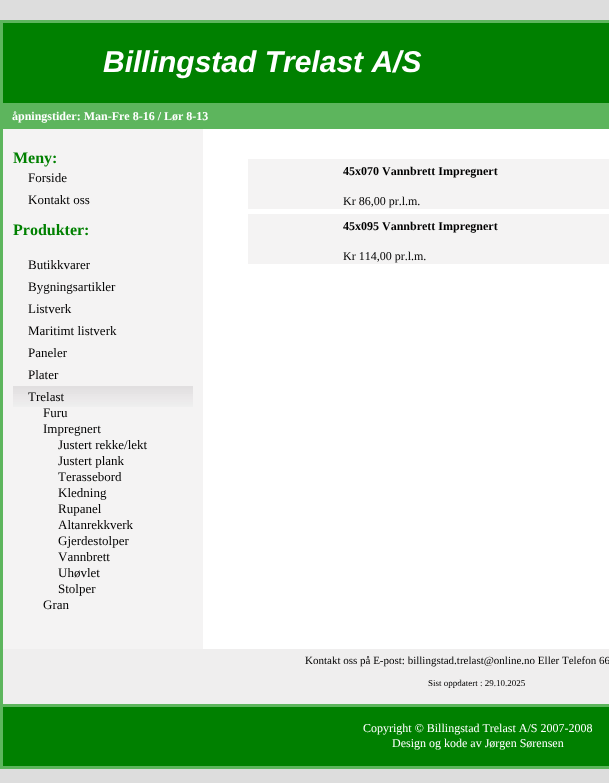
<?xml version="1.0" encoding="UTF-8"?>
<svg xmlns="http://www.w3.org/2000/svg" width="609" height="783">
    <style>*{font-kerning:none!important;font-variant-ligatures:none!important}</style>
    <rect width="100%" height="100%" fill="#DDDDDD"/>
    <rect x="203" y="129" width="406" height="520" fill="#FFFFFF"/>
    <rect x="0" y="20" width="3" height="749" fill="#5DB55D"/>
    <rect x="3" y="23" width="606" height="80" fill="#008000"/>
    <rect x="3" y="20" width="606" height="3" fill="#5DB55D"/>
    <rect x="3" y="103" width="606" height="26" fill="#5DB55D"/>
    <text x="103" y="72" font-family="Liberation Sans" font-size="30" font-weight="700" font-style="italic" fill="#FFFFFF">Billingstad Trelast A/S</text>
    <text x="12" y="120" font-family="Liberation Serif" font-size="12" font-weight="700" fill="#FFFFFF">åpningstider: Man-Fre 8-16 / Lør 8-13</text>
    <rect x="3" y="129" width="200" height="520" fill="#F4F3F3"/>
    <text x="13" y="163" font-family="Liberation Serif" font-size="16" font-weight="700" fill="#008000">Meny:</text>
    <text font-family="Liberation Serif" font-size="13" fill="#000000">
        <tspan x="28" y="182">Forside</tspan>
        <tspan x="28" y="204">Kontakt oss</tspan>
    </text>
    <text x="13" y="235" font-family="Liberation Serif" font-size="16" font-weight="700" fill="#008000">Produkter:</text>
    <text font-family="Liberation Serif" font-size="13" fill="#000000">
        <tspan x="28" y="269">Butikkvarer</tspan>
        <tspan x="28" y="291">Bygningsartikler</tspan>
        <tspan x="28" y="313">Listverk</tspan>
        <tspan x="28" y="335">Maritimt listverk</tspan>
        <tspan x="28" y="357">Paneler</tspan>
        <tspan x="28" y="379">Plater</tspan>
    </text>
    <image x="13" y="386" width="180" height="21" href="img_01.png"/>
    <text x="28" y="401" font-family="Liberation Serif" font-size="13" fill="#000000">Trelast</text>
    <text font-family="Liberation Serif" font-size="13" fill="#000000">
        <tspan x="43" y="417">Furu</tspan>
        <tspan x="43" y="433">Impregnert</tspan>
    </text>
    <text font-family="Liberation Serif" font-size="13" fill="#000000">
        <tspan x="58" y="449">Justert rekke/lekt</tspan>
        <tspan x="58" y="465">Justert plank</tspan>
        <tspan x="58" y="481">Terassebord</tspan>
        <tspan x="58" y="497">Kledning</tspan>
        <tspan x="58" y="513">Rupanel</tspan>
        <tspan x="58" y="529">Altanrekkverk</tspan>
        <tspan x="58" y="545">Gjerdestolper</tspan>
        <tspan x="58" y="561">Vannbrett</tspan>
        <tspan x="58" y="577">Uhøvlet</tspan>
        <tspan x="58" y="593">Stolper</tspan>
    </text>
    <text x="43" y="609" font-family="Liberation Serif" font-size="13" fill="#000000">Gran</text>
    <rect x="248" y="159" width="361" height="50" fill="#F4F3F3"/>
    <text x="343" y="175" font-family="Liberation Serif" font-size="12" font-weight="700" fill="#000000">45x070 Vannbrett Impregnert</text>
    <text x="343" y="205" font-family="Liberation Serif" font-size="12" fill="#000000">Kr 86,00 pr.l.m.</text>
    <rect x="248" y="214" width="361" height="50" fill="#F4F3F3"/>
    <text x="343" y="230" font-family="Liberation Serif" font-size="12" font-weight="700" fill="#000000">45x095 Vannbrett Impregnert</text>
    <text x="343" y="260" font-family="Liberation Serif" font-size="12" fill="#000000">Kr 114,00 pr.l.m.</text>
    <rect x="3" y="649" width="606" height="55" fill="#EFEEEE"/>
    <text x="305" y="664" font-family="Liberation Serif" font-size="11" fill="#000000">Kontakt oss på E-post: billingstad.trelast@online.no Eller Telefon 66</text>
    <text x="428" y="686" font-family="Liberation Serif" font-size="9" fill="#000000"> Sist oppdatert : 29.10.2025</text>
    <rect x="3" y="707" width="606" height="59" fill="#008000"/>
    <rect x="3" y="704" width="606" height="3" fill="#5DB55D"/>
    <rect x="3" y="766" width="606" height="3" fill="#5DB55D"/>
    <text x="363" y="732" font-family="Liberation Serif" font-size="12" fill="#FFFFFF">Copyright © Billingstad Trelast A/S 2007-2008</text>
    <text x="392" y="747" font-family="Liberation Serif" font-size="12" fill="#FFFFFF">Design og kode av Jørgen Sørensen</text>
</svg>
